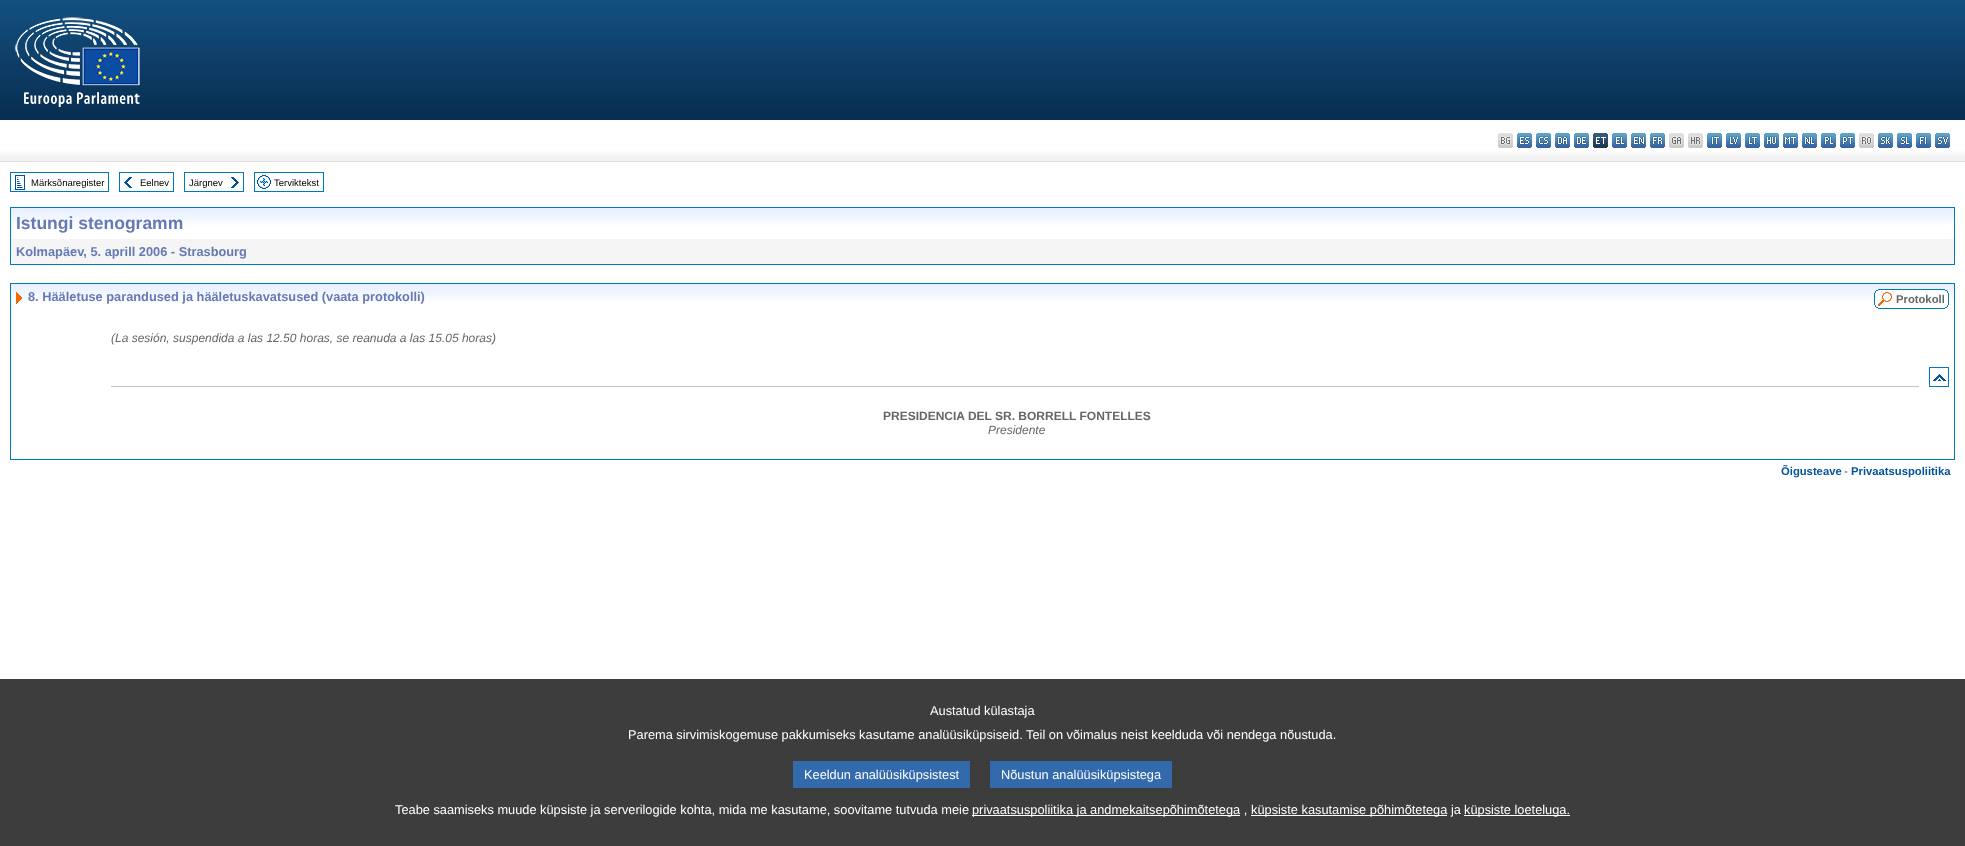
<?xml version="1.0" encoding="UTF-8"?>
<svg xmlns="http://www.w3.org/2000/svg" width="1965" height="846">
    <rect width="100%" height="100%" fill="#FFFFFF"/>
    <image x="0" y="0" width="1965" height="162" href="img_01.png"/>
    <image x="15" y="17" width="125" height="90" href="img_02.png"/>
    <image x="1498" y="133" width="15" height="15" href="img_03.png"/>
    <image x="1517" y="133" width="15" height="15" href="img_04.png"/>
    <image x="1536" y="133" width="15" height="15" href="img_05.png"/>
    <image x="1555" y="133" width="15" height="15" href="img_06.png"/>
    <image x="1574" y="133" width="15" height="15" href="img_07.png"/>
    <image x="1593" y="133" width="15" height="15" href="img_08.png"/>
    <image x="1612" y="133" width="15" height="15" href="img_09.png"/>
    <image x="1631" y="133" width="15" height="15" href="img_10.png"/>
    <image x="1650" y="133" width="15" height="15" href="img_11.png"/>
    <image x="1669" y="133" width="15" height="15" href="img_12.png"/>
    <image x="1688" y="133" width="15" height="15" href="img_13.png"/>
    <image x="1707" y="133" width="15" height="15" href="img_14.png"/>
    <image x="1726" y="133" width="15" height="15" href="img_15.png"/>
    <image x="1745" y="133" width="15" height="15" href="img_16.png"/>
    <image x="1764" y="133" width="15" height="15" href="img_17.png"/>
    <image x="1783" y="133" width="15" height="15" href="img_18.png"/>
    <image x="1802" y="133" width="15" height="15" href="img_19.png"/>
    <image x="1821" y="133" width="15" height="15" href="img_20.png"/>
    <image x="1840" y="133" width="15" height="15" href="img_21.png"/>
    <image x="1859" y="133" width="15" height="15" href="img_22.png"/>
    <image x="1878" y="133" width="15" height="15" href="img_23.png"/>
    <image x="1897" y="133" width="15" height="15" href="img_24.png"/>
    <image x="1916" y="133" width="15" height="15" href="img_25.png"/>
    <image x="1935" y="133" width="15" height="15" href="img_26.png"/>
    <rect x="10.5" y="172.5" width="98" height="19" fill="none" stroke="#0077BE"/>
    <image x="15" y="175" width="10" height="15" href="img_27.png"/>
    <text x="31" y="186" font-family="Liberation Sans" font-size="9.5" fill="#000000">Märksõnaregister</text>
    <rect x="119.5" y="172.5" width="54" height="19" fill="none" stroke="#0077BE"/>
    <image x="124" y="177" width="8" height="11" href="img_28.png"/>
    <text x="140" y="186" font-family="Liberation Sans" font-size="9.5" fill="#000000">Eelnev</text>
    <rect x="184.5" y="172.5" width="59" height="19" fill="none" stroke="#0077BE"/>
    <text x="189" y="186" font-family="Liberation Sans" font-size="9.5" fill="#000000">Järgnev</text>
    <image x="231" y="177" width="8" height="11" href="img_29.png"/>
    <rect x="254.5" y="172.5" width="69" height="19" fill="none" stroke="#0077BE"/>
    <image x="257" y="175" width="14" height="14" href="img_30.png"/>
    <text x="274" y="186" font-family="Liberation Sans" font-size="9.5" fill="#000000">Terviktekst</text>
    <rect x="10.5" y="207.5" width="1944" height="57" fill="none" stroke="#0077BE"/>
    <image x="11" y="208" width="1866" height="17" href="img_31.png"/>
    <text x="16" y="229" font-family="Liberation Sans" font-size="17.5" font-weight="700" fill="#6679B4">Istungi stenogramm</text>
    <image x="1877" y="208" width="77" height="17" href="img_32.png"/>
    <rect x="11" y="239" width="1943" height="25" fill="#F5F5F5"/>
    <text x="16" y="256" font-family="Liberation Sans" font-size="12.8" font-weight="700" fill="#6679B4">Kolmapäev, 5. aprill 2006 - Strasbourg</text>
    <rect x="10.5" y="283.5" width="1944" height="176" fill="none" stroke="#0077BE"/>
    <image x="11" y="284" width="1858" height="17" href="img_33.png"/>
    <image x="16" y="292" width="6" height="12" href="img_34.png"/>
    <text x="28" y="301" font-family="Liberation Sans" font-size="12.8" font-weight="700" fill="#6679B4">8. Hääletuse parandused ja hääletuskavatsused (vaata protokolli)</text>
    <image x="1869" y="284" width="85" height="17" href="img_35.png"/>
    <image x="1874" y="289" width="22" height="20" href="img_36.png"/>
    <rect x="1896" y="290" width="48" height="11" fill="#FFFFFF"/>
    <rect x="1896" y="289" width="48" height="1" fill="#0077BE"/>
    <rect x="1896" y="308" width="48" height="1" fill="#0077BE"/>
    <text x="1896" y="303" font-family="Liberation Sans" font-size="11.25" font-weight="700" fill="#666666">Protokoll</text>
    <image x="1944" y="289" width="5" height="20" href="img_37.png"/>
    <text x="111" y="342" font-family="Liberation Sans" font-size="12" font-style="italic" fill="#666666">(La sesión, suspendida a las 12.50 horas, se reanuda a las 15.05 horas)</text>
    <rect x="111" y="386" width="1808" height="1" fill="#C5C5C7"/>
    <rect x="1929.5" y="367.5" width="19" height="19" fill="none" stroke="#0077BE"/>
    <image x="1933" y="374" width="13" height="7" href="img_38.png"/>
    <text x="883" y="420" font-family="Liberation Sans" font-size="12" font-weight="700" fill="#666666">PRESIDENCIA DEL SR. BORRELL FONTELLES</text>
    <text x="988" y="434" font-family="Liberation Sans" font-size="12" font-style="italic" fill="#666666">Presidente</text>
    <text x="1781" y="475" font-family="Liberation Sans" font-size="11.25" font-weight="700" fill="#03529D">Õigusteave</text>
    <text x="1844" y="475" font-family="Liberation Sans" font-size="11.25" fill="#03529D">-</text>
    <text x="1851" y="475" font-family="Liberation Sans" font-size="11.25" font-weight="700" fill="#03529D">Privaatsuspoliitika</text>
    <rect x="0" y="679" width="1965" height="167" fill="#3D3D3D"/>
    <text x="930" y="715" font-family="Liberation Sans" font-size="12.8" fill="#FFFFFF">Austatud külastaja</text>
    <text x="628" y="739" font-family="Liberation Sans" font-size="12.8" fill="#FFFFFF">Parema sirvimiskogemuse pakkumiseks kasutame analüüsiküpsiseid. Teil on võimalus neist keelduda või nendega nõustuda.</text>
    <rect x="793" y="761" width="177" height="27" fill="#326AAB"/>
    <text x="804" y="779" font-family="Liberation Sans" font-size="12.8" fill="#FFFFFF">Keeldun analüüsiküpsistest</text>
    <rect x="990" y="761" width="182" height="27" fill="#326AAB"/>
    <text x="1001" y="779" font-family="Liberation Sans" font-size="12.8" fill="#FFFFFF">Nõustun analüüsiküpsistega</text>
    <text x="395" y="814" font-family="Liberation Sans" font-size="12.8" fill="#FFFFFF">Teabe saamiseks muude küpsiste ja serverilogide kohta, mida me kasutame, soovitame tutvuda meie</text>
    <rect x="972" y="815" width="268" height="1" fill="#FFFFFF"/>
    <text x="972" y="814" font-family="Liberation Sans" font-size="12.8" fill="#FFFFFF">privaatsuspoliitika ja andmekaitsepõhimõtetega ,</text>
    <rect x="1251" y="815" width="196" height="1" fill="#FFFFFF"/>
    <text x="1251" y="814" font-family="Liberation Sans" font-size="12.8" fill="#FFFFFF">küpsiste kasutamise põhimõtetega ja</text>
    <rect x="1464" y="815" width="106" height="1" fill="#FFFFFF"/>
    <text x="1464" y="814" font-family="Liberation Sans" font-size="12.8" fill="#FFFFFF">küpsiste loeteluga.</text>
</svg>
